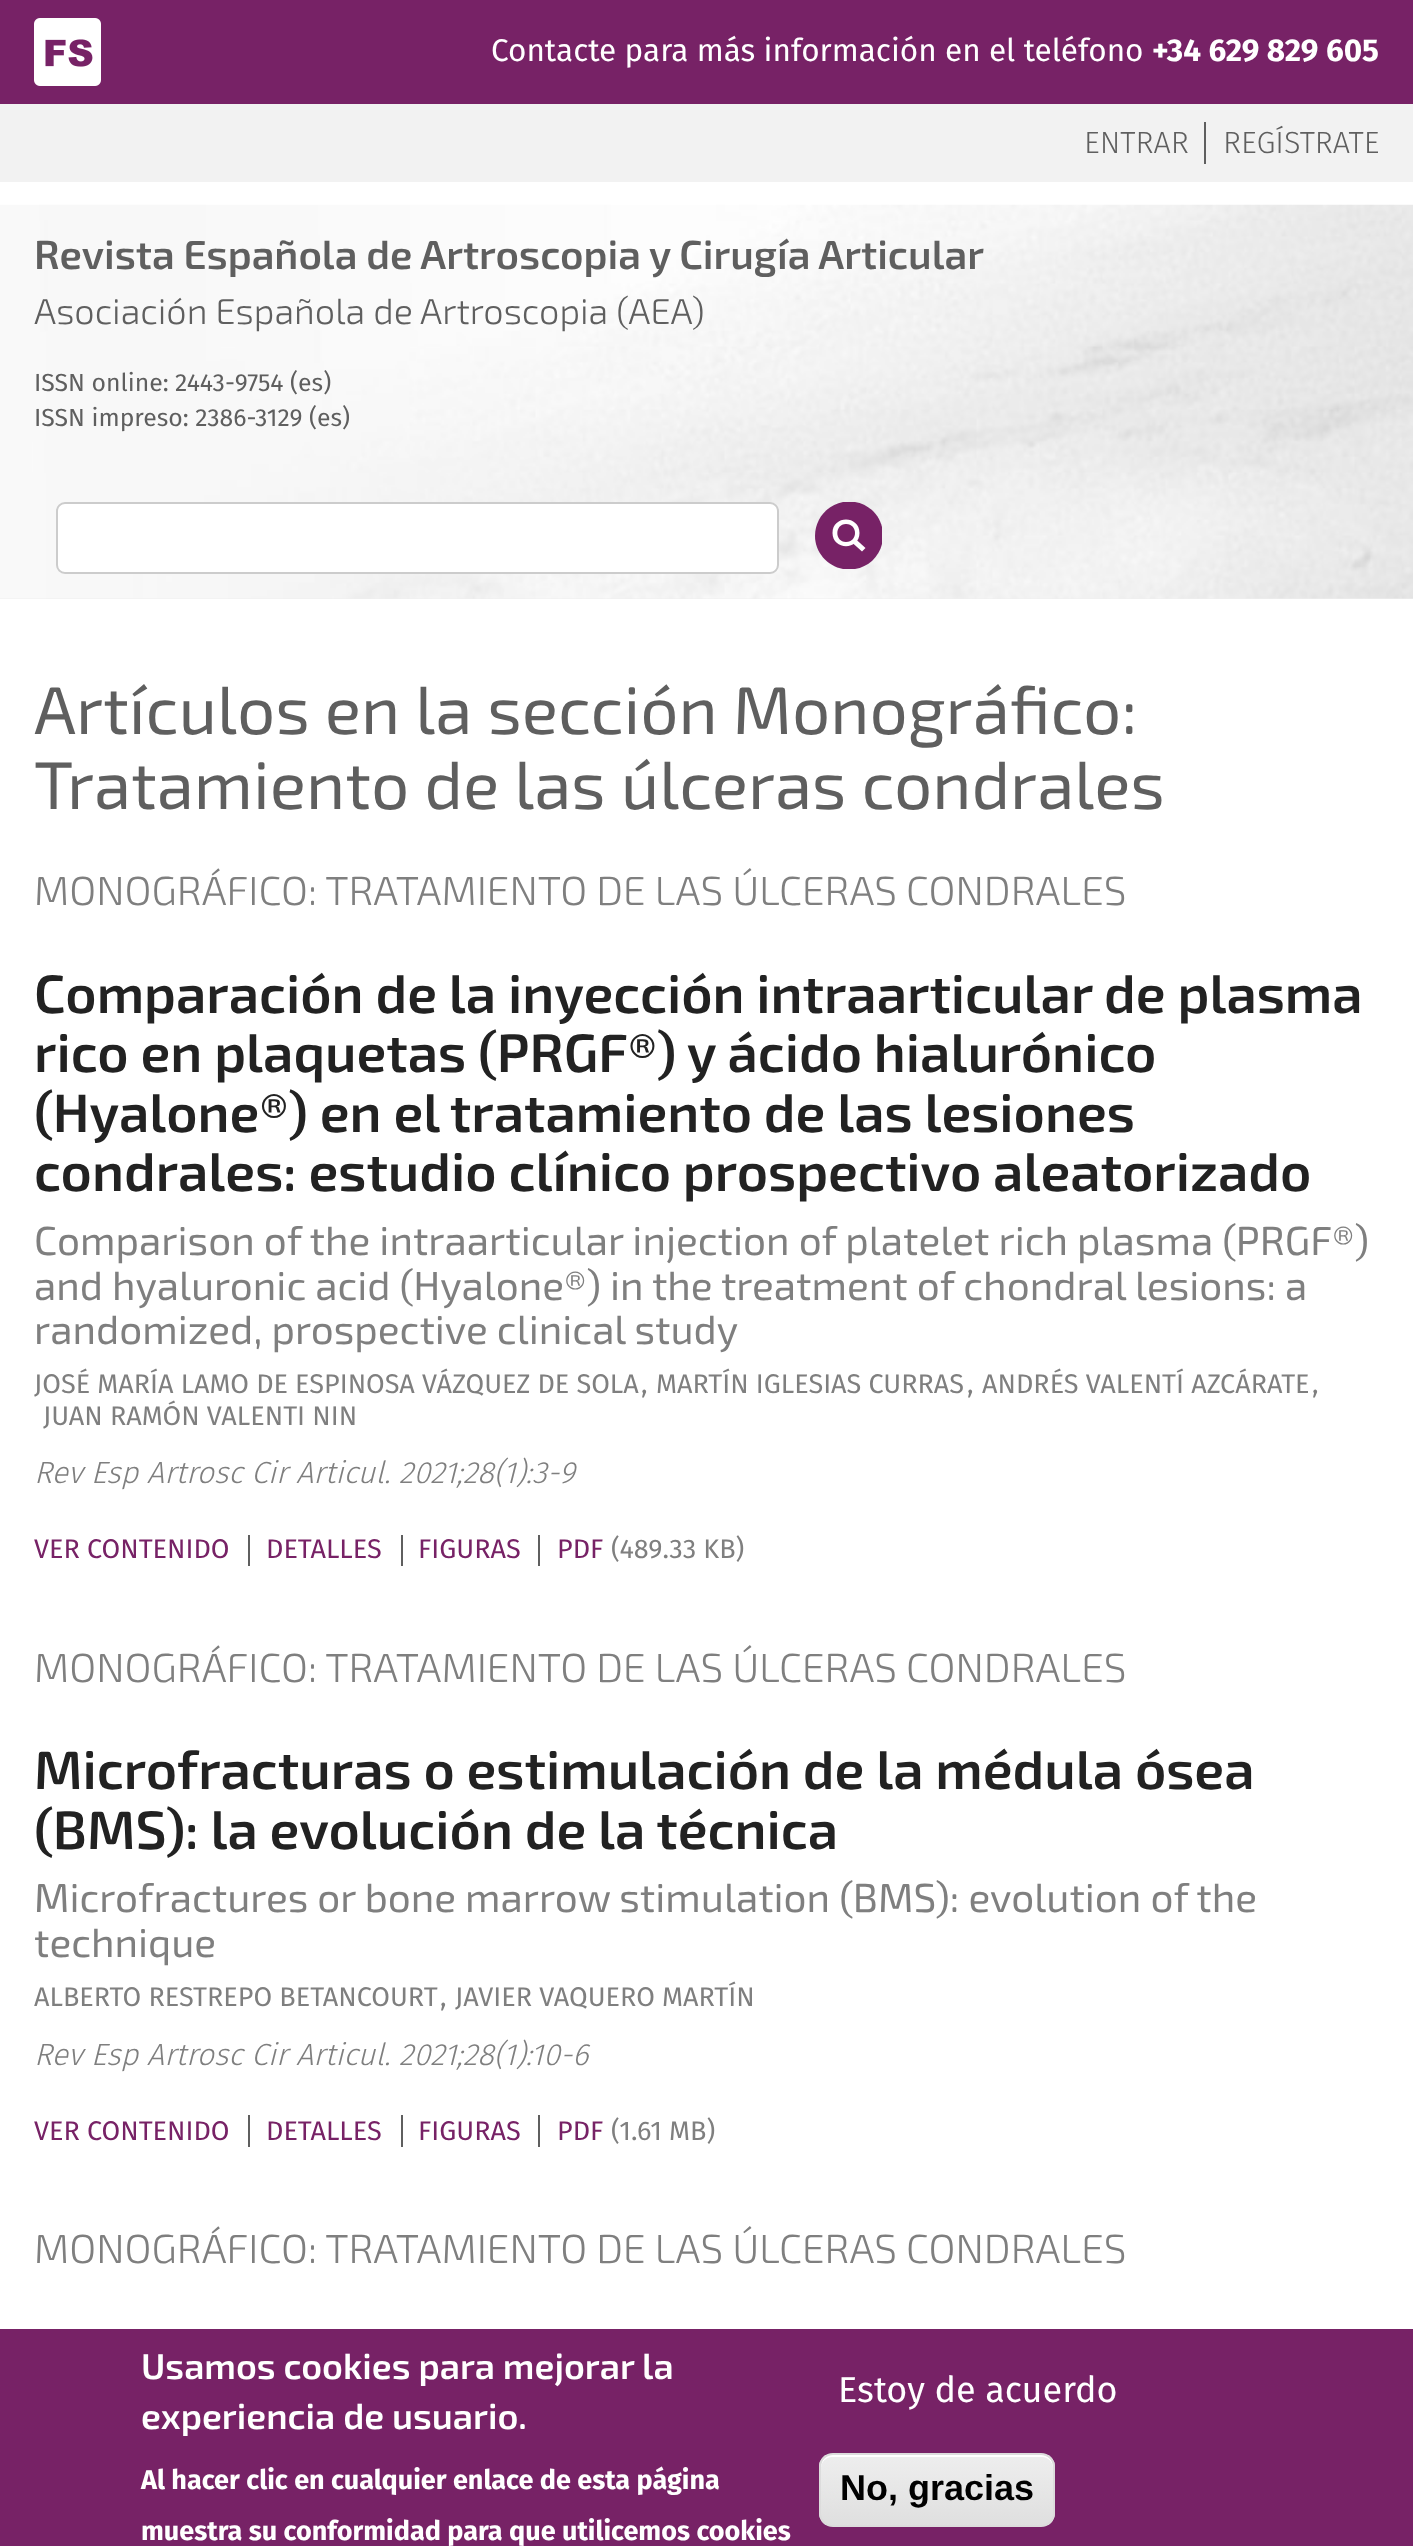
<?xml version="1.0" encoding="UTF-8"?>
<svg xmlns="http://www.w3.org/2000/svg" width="1413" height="2546">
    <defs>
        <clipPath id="clip1"><rect x="819" y="2453" width="236" height="74" rx="14"/></clipPath>
        <linearGradient id="g1" gradientUnits="userSpaceOnUse" x1="937" y1="2455" x2="937" y2="2525"><stop offset="0.05" stop-color="#EDEDED"/><stop offset="1" stop-color="#DFDFDF"/></linearGradient>
    </defs>
    <rect width="100%" height="100%" fill="#FFFFFF"/>
    <rect x="0" y="0" width="1413" height="104" fill="#772266"/>
    <image x="34" y="18" width="67" height="68" href="img_01.png"/>
    <text x="491" y="61" font-family="Fira Sans" font-size="31.5" fill="#FFFFFF">Contacte para más información en el teléfono</text>
    <text x="1152" y="61" font-family="Fira Sans" font-size="31.5" font-weight="700" fill="#FFFFFF">+34 629 829 605</text>
    <rect x="0" y="104" width="1413" height="78" fill="#F2F2F2"/>
    <rect x="1204" y="122" width="2" height="42" fill="#5F5F5F"/>
    <text x="1084" y="153" font-family="Fira Sans" font-size="30.6" font-weight="300" fill="#5F5F5F">ENTRAR</text>
    <text x="1223" y="153" font-family="Fira Sans" font-size="30.6" font-weight="300" fill="#5F5F5F">REGÍSTRATE</text>
    <rect x="0" y="598" width="1413" height="1" fill="#EFEFEF"/>
    <image x="0" y="204" width="1413" height="395" href="img_02.png"/>
    <text x="34" y="269" font-family="'Exo 2'" font-size="40.5" font-weight="600" fill="#5F5F5F">Revista Española de Artroscopia y Cirugía Articular</text>
    <text x="34" y="324" font-family="'Exo 2'" font-size="36" font-weight="300" fill="#5F5F5F">Asociación Española de Artroscopia (AEA)</text>
    <text font-family="Fira Sans" font-size="24.75" fill="#5F5F5F">
        <tspan x="34" y="391">ISSN online: 2443-9754 (es)</tspan>
        <tspan x="34" y="426">ISSN impreso: 2386-3129 (es)</tspan>
    </text>
    <rect x="57" y="503" width="721" height="70" rx="8" fill="#FFFFFF" stroke="#CCCCCC" stroke-width="2"/>
    <path d="M 843 569 C 827 566 815 552 815 536 C 815 519 827 505 843 502 H 855 C 868 504 879 514 882 527 V 544 C 879 557 868 567 855 569 Z" fill="#772266"/>
    <path d="M 859.5 533 C 859.5 550.5 832.5 550.5 832.5 533 C 832.5 515 859.5 515 859.5 533 Z M 846 524 C 834.5 524 834.5 542 846 542 C 858 542 858 524 846 524 Z" fill="#FFFFFF"/>
    <path d="M 852 542.5 L 855 538.5 L 865.5 548 L 862 551.5 Z" fill="#FFFFFF"/>
    <text font-family="'Exo 2'" font-size="67.5" fill="#5F5F5F">
        <tspan x="34" y="734">Artículos en la sección Monográfico:</tspan>
        <tspan x="34" y="809">Tratamiento de las úlceras condrales</tspan>
    </text>
    <text x="34" y="905" font-family="'Exo 2'" font-size="40.5" font-weight="300" fill="#7F7F7F">MONOGRÁFICO: TRATAMIENTO DE LAS ÚLCERAS CONDRALES</text>
    <text font-family="'Exo 2'" font-size="54" font-weight="600" fill="#222222">
        <tspan x="34" y="1013">Comparación de la inyección intraarticular de plasma</tspan>
        <tspan x="34" y="1072">rico en plaquetas (PRGF®) y ácido hialurónico</tspan>
        <tspan x="34" y="1132">(Hyalone®) en el tratamiento de las lesiones</tspan>
        <tspan x="34" y="1191">condrales: estudio clínico prospectivo aleatorizado</tspan>
    </text>
    <text font-family="'Exo 2'" font-size="40.5" fill="#7F7F7F">
        <tspan x="34" y="1255">Comparison of the intraarticular injection of platelet rich plasma (PRGF®)</tspan>
        <tspan x="34" y="1300">and hyaluronic acid (Hyalone®) in the treatment of chondral lesions: a</tspan>
        <tspan x="34" y="1344">randomized, prospective clinical study</tspan>
    </text>
    <text x="34" y="1393" font-family="Fira Sans" font-size="27" fill="#7F7F7F">JOSÉ MARÍA LAMO DE ESPINOSA VÁZQUEZ DE SOLA</text>
    <text x="641" y="1393" font-family="Fira Sans" font-size="27" fill="#7F7F7F">,</text>
    <text x="656" y="1393" font-family="Fira Sans" font-size="27" fill="#7F7F7F">MARTÍN IGLESIAS CURRAS</text>
    <text x="967" y="1393" font-family="Fira Sans" font-size="27" fill="#7F7F7F">,</text>
    <text x="982" y="1393" font-family="Fira Sans" font-size="27" fill="#7F7F7F">ANDRÉS VALENTÍ AZCÁRATE</text>
    <text x="1312" y="1393" font-family="Fira Sans" font-size="27" fill="#7F7F7F">,</text>
    <text x="43" y="1425" font-family="Fira Sans" font-size="27" fill="#7F7F7F">JUAN RAMÓN VALENTI NIN</text>
    <text x="34" y="1483" font-family="Fira Sans" font-size="30.6" font-weight="300" font-style="italic" fill="#7F7F7F">Rev Esp Artrosc Cir Articul. 2021;28(1):3-9</text>
    <text x="34" y="1558" font-family="Fira Sans" font-size="27" fill="#772266">VER CONTENIDO</text>
    <rect x="248" y="1535" width="2" height="31" fill="#5F5F5F"/>
    <text x="266" y="1558" font-family="Fira Sans" font-size="27" fill="#772266">DETALLES</text>
    <rect x="401" y="1535" width="2" height="31" fill="#5F5F5F"/>
    <text x="418" y="1558" font-family="Fira Sans" font-size="27" fill="#772266">FIGURAS</text>
    <rect x="538" y="1535" width="2" height="31" fill="#5F5F5F"/>
    <text x="557" y="1558" font-family="Fira Sans" font-size="27" fill="#772266">PDF</text>
    <text x="611" y="1558" font-family="Fira Sans" font-size="27" fill="#7F7F7F">(489.33 KB)</text>
    <text x="34" y="1682" font-family="'Exo 2'" font-size="40.5" font-weight="300" fill="#7F7F7F">MONOGRÁFICO: TRATAMIENTO DE LAS ÚLCERAS CONDRALES</text>
    <text font-family="'Exo 2'" font-size="54" font-weight="600" fill="#222222">
        <tspan x="34" y="1789">Microfracturas o estimulación de la médula ósea</tspan>
        <tspan x="34" y="1849">(BMS): la evolución de la técnica</tspan>
    </text>
    <text font-family="'Exo 2'" font-size="40.5" fill="#7F7F7F">
        <tspan x="34" y="1912">Microfractures or bone marrow stimulation (BMS): evolution of the</tspan>
        <tspan x="34" y="1957">technique</tspan>
    </text>
    <text x="34" y="2006" font-family="Fira Sans" font-size="27" fill="#7F7F7F">ALBERTO RESTREPO BETANCOURT</text>
    <text x="440" y="2006" font-family="Fira Sans" font-size="27" fill="#7F7F7F">,</text>
    <text x="455" y="2006" font-family="Fira Sans" font-size="27" fill="#7F7F7F">JAVIER VAQUERO MARTÍN</text>
    <text x="34" y="2065" font-family="Fira Sans" font-size="30.6" font-weight="300" font-style="italic" fill="#7F7F7F">Rev Esp Artrosc Cir Articul. 2021;28(1):10-6</text>
    <text x="34" y="2140" font-family="Fira Sans" font-size="27" fill="#772266">VER CONTENIDO</text>
    <rect x="248" y="2115" width="2" height="32" fill="#5F5F5F"/>
    <text x="266" y="2140" font-family="Fira Sans" font-size="27" fill="#772266">DETALLES</text>
    <rect x="401" y="2115" width="2" height="32" fill="#5F5F5F"/>
    <text x="418" y="2140" font-family="Fira Sans" font-size="27" fill="#772266">FIGURAS</text>
    <rect x="538" y="2115" width="2" height="32" fill="#5F5F5F"/>
    <text x="557" y="2140" font-family="Fira Sans" font-size="27" fill="#772266">PDF</text>
    <text x="611" y="2140" font-family="Fira Sans" font-size="27" fill="#7F7F7F">(1.61 MB)</text>
    <text x="34" y="2263" font-family="'Exo 2'" font-size="40.5" font-weight="300" fill="#7F7F7F">MONOGRÁFICO: TRATAMIENTO DE LAS ÚLCERAS CONDRALES</text>
    <rect x="0" y="2329" width="1413" height="217" fill="#772266"/>
    <text font-family="'Exo 2'" font-size="36" font-weight="600" fill="#FFFFFF">
        <tspan x="141" y="2379">Usamos cookies para mejorar la</tspan>
        <tspan x="141" y="2429">experiencia de usuario.</tspan>
    </text>
    <text font-family="Fira Sans" font-size="27" font-weight="700" fill="#FFFFFF">
        <tspan x="141" y="2489">Al hacer clic en cualquier enlace de esta página</tspan>
        <tspan x="141" y="2540">muestra su conformidad para que utilicemos cookies</tspan>
    </text>
    <text x="838" y="2402" font-family="Fira Sans" font-size="36" fill="#FFFFFF">Estoy de acuerdo</text>
    <g clip-path="url(#clip1)">
        <rect x="819" y="2455" width="236" height="70" fill="url(#g1)"/>
    </g>
    <path d="M 832 2457 H 1042 C 1048 2457 1053 2462 1053 2468 V 2466 C 1053 2460 1048 2455 1042 2455 H 832 C 826 2455 821 2460 821 2466 V 2468 C 821 2462 826 2457 832 2457 Z" fill="#FFFFFF"/>
    <rect x="820" y="2454" width="234" height="72" rx="13" fill="none" stroke="#DCDCDC" stroke-width="2"/>
    <text x="840" y="2500" font-family="Liberation Sans" font-size="36" font-weight="700" fill="#000000">No, gracias</text>
</svg>
